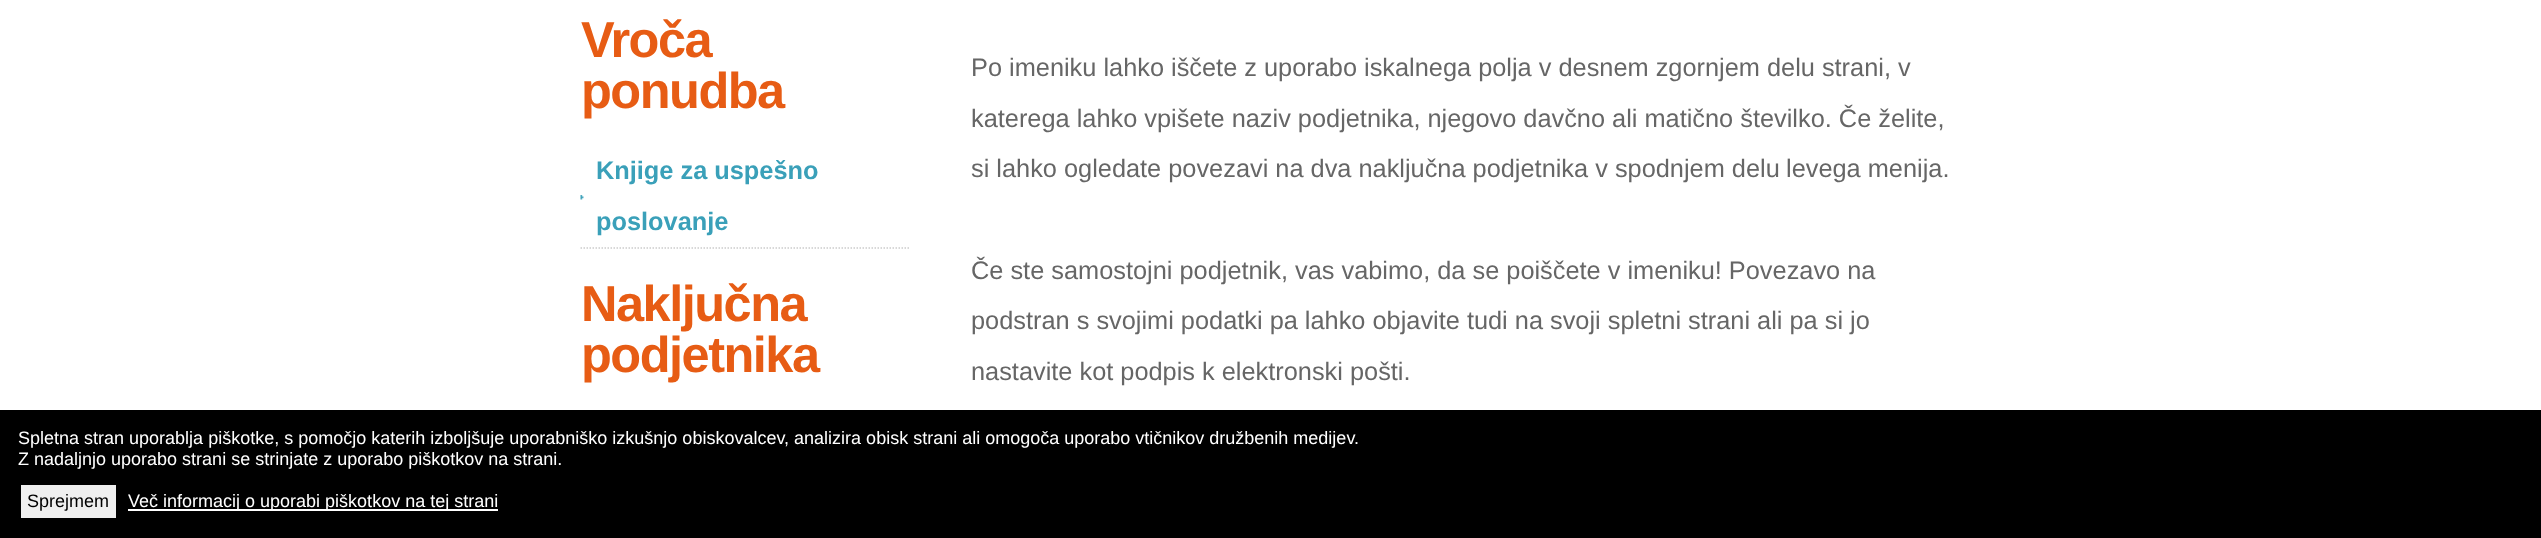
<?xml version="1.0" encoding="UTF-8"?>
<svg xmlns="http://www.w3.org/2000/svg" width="2541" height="538">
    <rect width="100%" height="100%" fill="#FFFFFF"/>
    <text font-family="Liberation Sans" font-size="50.5" font-weight="700" letter-spacing="-1.5" fill="#E75C14">
        <tspan x="581" y="57">Vroča</tspan>
        <tspan x="581" y="108">ponudba</tspan>
    </text>
    <image x="580" y="195" width="4" height="5" href="img_01.png"/>
    <path d="M 580.5 248 H 910.5" fill="none" stroke="#CCCCCC" stroke-width="1.5" stroke-dasharray="1.5 1.5"/>
    <text x="596" y="179" font-family="Liberation Sans" font-size="25.35" font-weight="700" fill="#3AA0B9">Knjige za uspešno</text>
    <text x="596" y="230" font-family="Liberation Sans" font-size="25.35" font-weight="700" fill="#3AA0B9">poslovanje</text>
    <text font-family="Liberation Sans" font-size="50.5" font-weight="700" letter-spacing="-1.5" fill="#E75C14">
        <tspan x="581" y="321">Naključna</tspan>
        <tspan x="581" y="372">podjetnika</tspan>
    </text>
    <text x="971" y="76" font-family="Liberation Sans" font-size="25.35" fill="#666666">Po imeniku lahko iščete z uporabo iskalnega polja v desnem zgornjem delu strani, v</text>
    <text font-family="Liberation Sans" font-size="25.35" fill="#666666">
        <tspan x="971" y="127">katerega lahko vpišete naziv podjetnika, njegovo davčno ali matično številko. Če želite,</tspan>
        <tspan x="971" y="177">si lahko ogledate povezavi na dva naključna podjetnika v spodnjem delu</tspan>
    </text>
    <text x="1786" y="177" font-family="Liberation Sans" font-size="25.35" fill="#666666">levega menija.</text>
    <text font-family="Liberation Sans" font-size="25.35" fill="#666666">
        <tspan x="971" y="279">Če ste samostojni podjetnik, vas vabimo, da se poiščete v imeniku! Povezavo na</tspan>
        <tspan x="971" y="329">podstran s svojimi podatki pa lahko objavite tudi na svoji spletni strani ali pa si jo</tspan>
    </text>
    <text x="971" y="380" font-family="Liberation Sans" font-size="25.35" fill="#666666">nastavite kot podpis k elektronski pošti.</text>
    <rect x="0" y="410" width="2541" height="128" fill="#000000"/>
    <text font-family="Liberation Sans" font-size="18" fill="#FFFFFF">
        <tspan x="18" y="444">Spletna stran uporablja piškotke, s pomočjo katerih izboljšuje uporabniško izkušnjo obiskovalcev, analizira obisk strani ali omogoča uporabo vtičnikov družbenih medijev.</tspan>
        <tspan x="18" y="465">Z nadaljnjo uporabo strani se strinjate z uporabo piškotkov na strani.</tspan>
    </text>
    <rect x="21" y="485" width="95" height="33" fill="#EFEFEF"/>
    <text x="27" y="507" font-family="Liberation Sans" font-size="18" fill="#000000">Sprejmem</text>
    <rect x="128" y="509" width="370" height="2" fill="#FFFFFF"/>
    <text x="128" y="507" font-family="Liberation Sans" font-size="18" fill="#FFFFFF">Več informacij o uporabi piškotkov na tej strani</text>
</svg>
